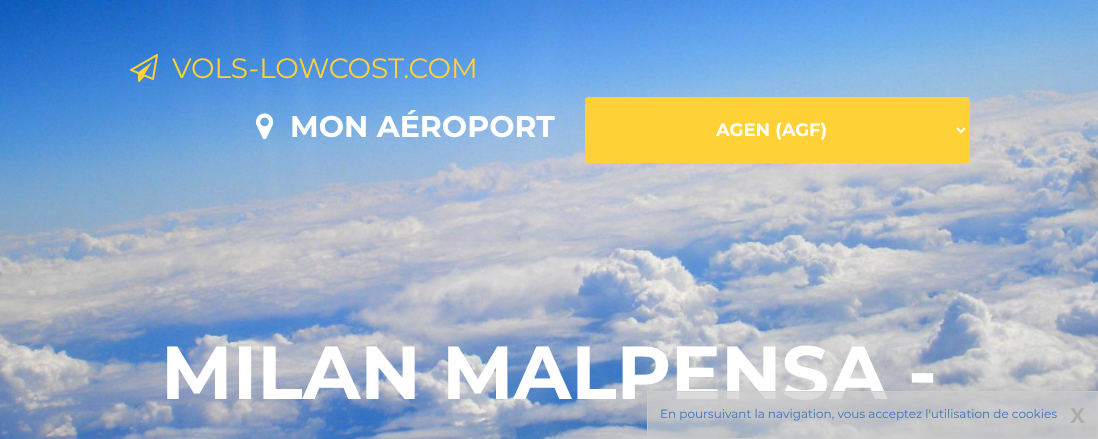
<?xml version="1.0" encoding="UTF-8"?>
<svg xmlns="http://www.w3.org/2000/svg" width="1098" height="439">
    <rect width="100%" height="100%" fill="#FFFFFF"/>
    <image x="0" y="0" width="1098" height="439" href="img_01.png"/>
    <image x="130" y="54" width="28" height="28" href="img_02.png"/>
    <text x="172" y="78" font-family="Montserrat" font-size="28" fill="#FED136">VOLS-LOWCOST.COM</text>
    <image x="256" y="113" width="18" height="27" href="img_03.png"/>
    <text x="290" y="137" font-family="Montserrat" font-size="30" font-weight="700" fill="#FFFFFF">MON AÉROPORT</text>
    <rect x="585.5" y="97.5" width="384" height="65" rx="2.5" fill="#FED136" stroke="#FED136"/>
    <path d="M 957 128 L 961 132 L 965 128" fill="none" stroke="#FFFFFF" stroke-width="2"/>
    <text x="716" y="136" font-family="Montserrat" font-size="18" font-weight="700" fill="#FFFFFF">AGEN (AGF)</text>
    <text x="161" y="399" font-family="Montserrat" font-size="75" font-weight="700" fill="#FFFFFF">MILAN MALPENSA -</text>
    <rect x="647" y="391" width="451" height="48" fill="#CCCCCC" fill-opacity="0.7"/>
    <rect x="647.5" y="391.5" width="450" height="47" fill="none" stroke="#CCCCCC" stroke-opacity="0.7"/>
    <text x="660" y="418" font-family="Montserrat" font-size="12" fill="#3C73B9">En poursuivant la navigation, vous acceptez l'utilisation de cookies</text>
    <text x="1070" y="423" font-family="Montserrat" font-size="21" font-weight="700" fill="#ACACAD">X</text>
</svg>
